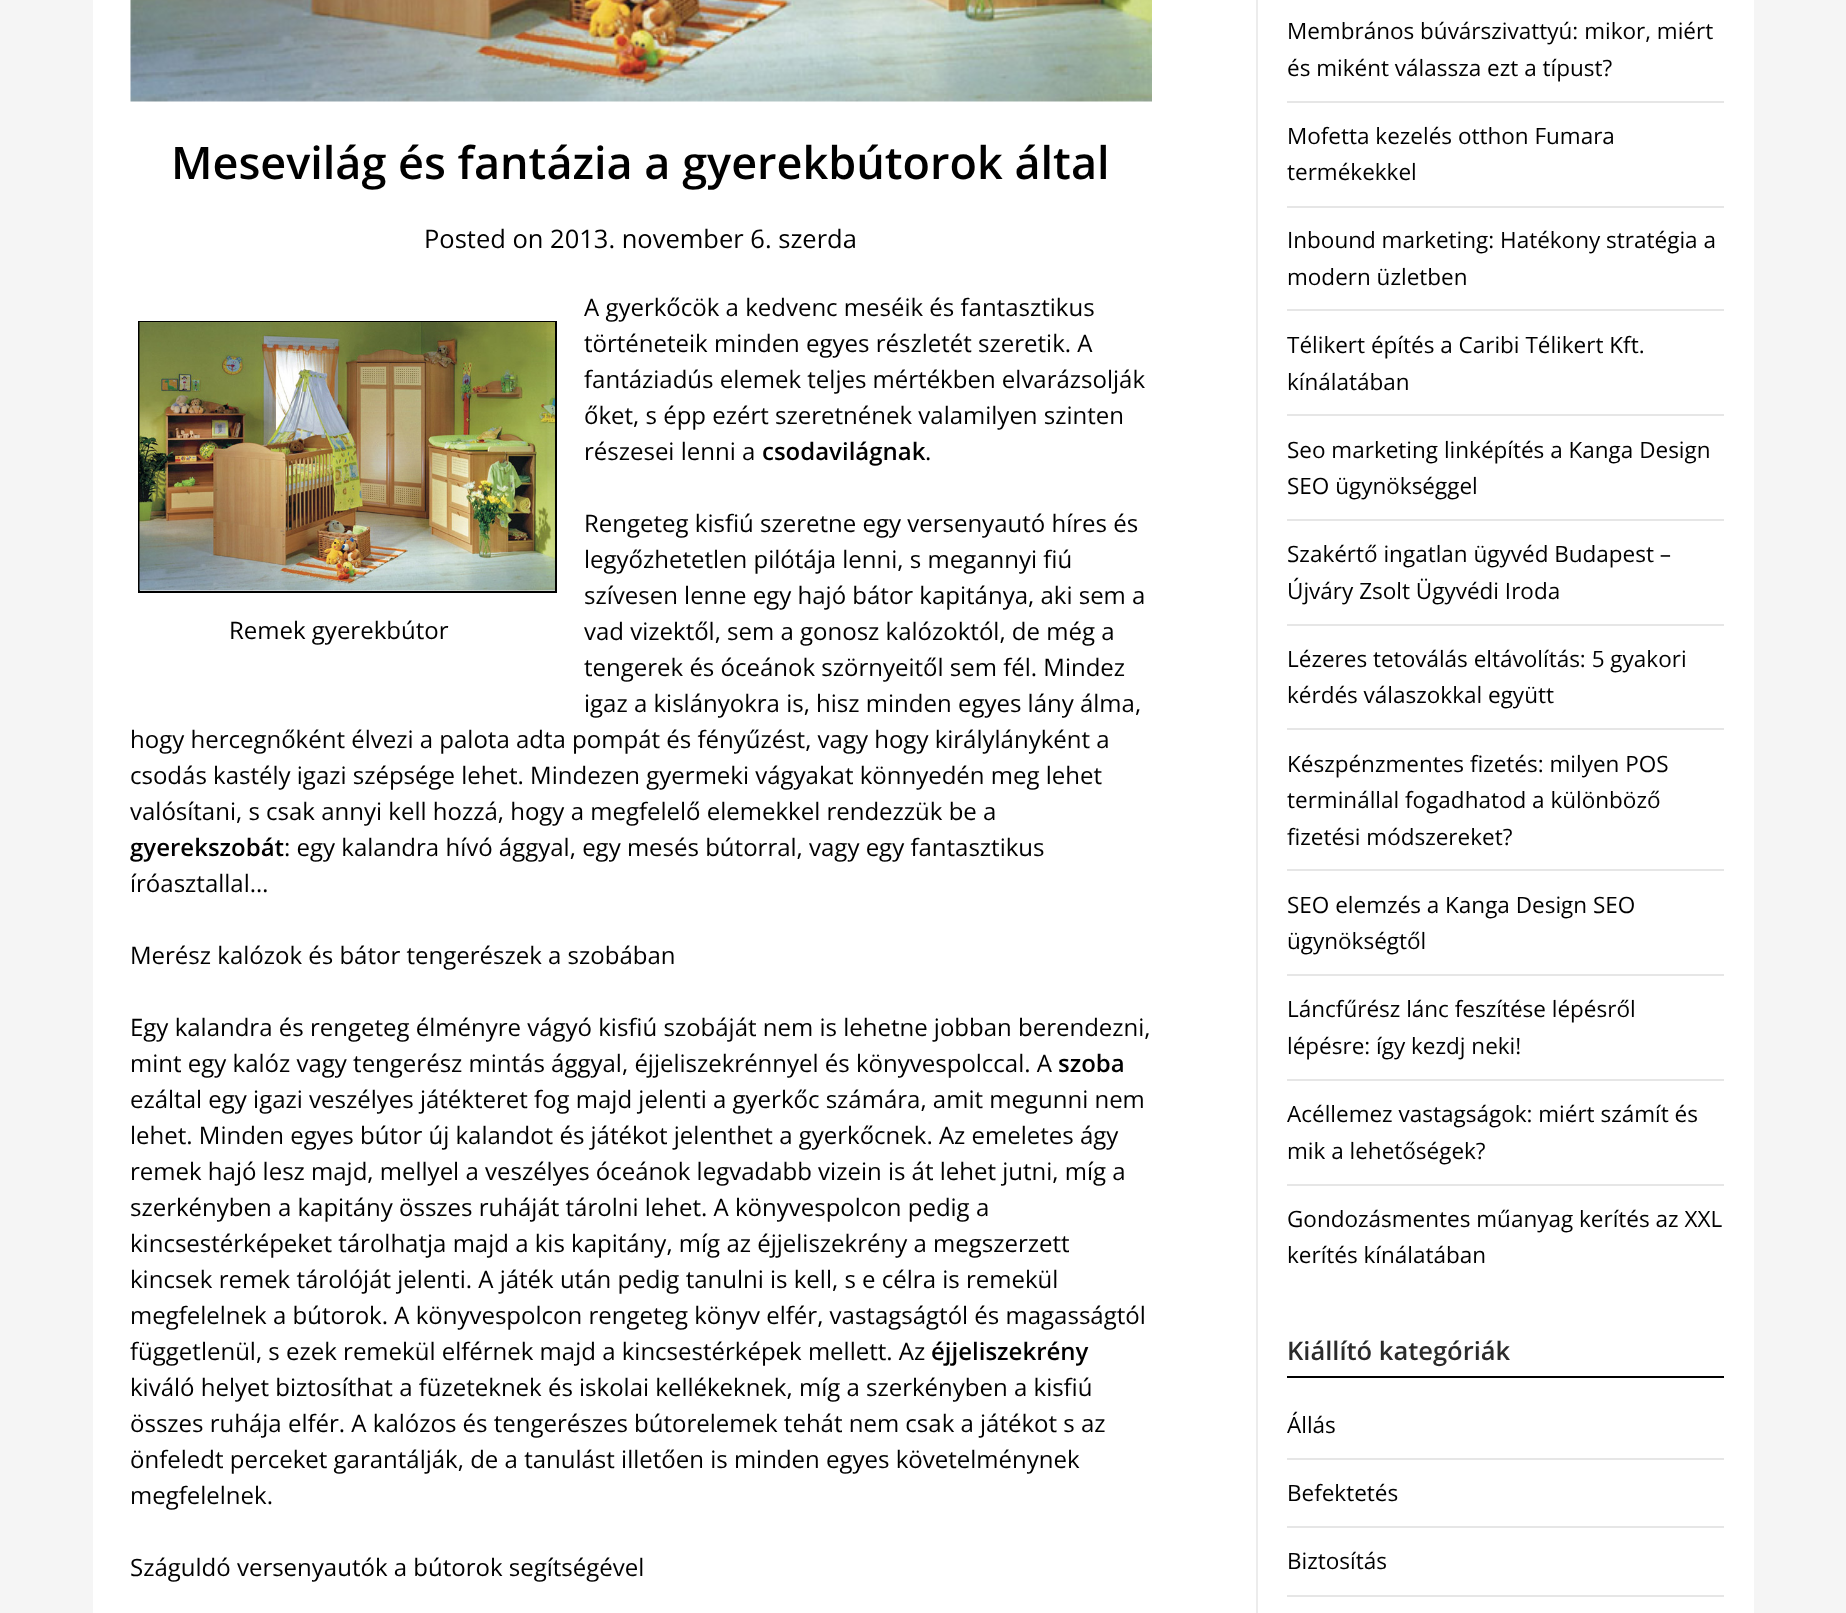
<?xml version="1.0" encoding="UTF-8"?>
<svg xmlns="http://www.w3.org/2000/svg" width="1846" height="1613">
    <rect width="100%" height="100%" fill="#F5F5F5"/>
    <rect x="93" y="0" width="1661" height="1613" fill="#FFFFFF"/>
    <image x="130" y="0" width="1022" height="102" href="img_01.png"/>
    <text x="171" y="179" font-family="Open Sans" font-size="45" font-weight="600" fill="#000000">Mesevilág és fantázia a gyerekbútorok által</text>
    <text x="424" y="248" font-family="Open Sans" font-size="25.5" fill="#000000">Posted on 2013. november 6. szerda</text>
    <text font-family="Open Sans" font-size="24" fill="#000000">
        <tspan x="584" y="316">A gyerkőcök a kedvenc meséik és fantasztikus</tspan>
        <tspan x="584" y="352">történeteik minden egyes részletét szeretik. A</tspan>
        <tspan x="584" y="388">fantáziadús elemek teljes mértékben elvarázsolják</tspan>
        <tspan x="584" y="424">őket, s épp ezért szeretnének valamilyen szinten</tspan>
        <tspan x="584" y="460">részesei lenni a</tspan>
    </text>
    <text x="762" y="460" font-family="Open Sans" font-size="24" font-weight="600" fill="#000000">csodavilágnak</text>
    <text x="925" y="460" font-family="Open Sans" font-size="24" fill="#000000">.</text>
    <text font-family="Open Sans" font-size="24" fill="#000000">
        <tspan x="584" y="532">Rengeteg kisfiú szeretne egy versenyautó híres és</tspan>
        <tspan x="584" y="568">legyőzhetetlen pilótája lenni, s megannyi fiú</tspan>
        <tspan x="584" y="604">szívesen lenne egy hajó bátor kapitánya, aki sem a</tspan>
        <tspan x="584" y="640">vad vizektől, sem a gonosz kalózoktól, de még a</tspan>
        <tspan x="584" y="676">tengerek és óceánok szörnyeitől sem fél. Mindez</tspan>
        <tspan x="584" y="712">igaz a kislányokra is, hisz minden egyes lány álma,</tspan>
    </text>
    <text font-family="Open Sans" font-size="24" fill="#000000">
        <tspan x="130" y="748">hogy hercegnőként élvezi a palota adta pompát és fényűzést, vagy hogy királylányként a</tspan>
        <tspan x="130" y="784">csodás kastély igazi szépsége lehet. Mindezen gyermeki vágyakat könnyedén meg lehet</tspan>
        <tspan x="130" y="820">valósítani, s csak annyi kell hozzá, hogy a megfelelő elemekkel rendezzük be a</tspan>
    </text>
    <text x="130" y="856" font-family="Open Sans" font-size="24" font-weight="600" fill="#000000">gyerekszobát</text>
    <text x="284" y="856" font-family="Open Sans" font-size="24" fill="#000000">: egy kalandra hívó ággyal, egy mesés bútorral, vagy egy fantasztikus</text>
    <text x="130" y="892" font-family="Open Sans" font-size="24" fill="#000000">íróasztallal…</text>
    <rect x="139" y="322" width="417" height="270" fill="none" stroke="#000000" stroke-width="2"/>
    <image x="139" y="322" width="416" height="269" href="img_02.png"/>
    <text x="229" y="639" font-family="Open Sans" font-size="24" fill="#000000">Remek gyerekbútor</text>
    <text x="130" y="964" font-family="Open Sans" font-size="24" fill="#000000">Merész kalózok és bátor tengerészek a szobában</text>
    <text font-family="Open Sans" font-size="24" fill="#000000">
        <tspan x="130" y="1036">Egy kalandra és rengeteg élményre vágyó kisfiú szobáját nem is lehetne jobban berendezni,</tspan>
        <tspan x="130" y="1072">mint egy kalóz vagy tengerész mintás ággyal, éjjeliszekrénnyel és könyvespolccal. A</tspan>
    </text>
    <text x="1058" y="1072" font-family="Open Sans" font-size="24" font-weight="600" fill="#000000">szoba</text>
    <text font-family="Open Sans" font-size="24" fill="#000000">
        <tspan x="130" y="1108">ezáltal egy igazi veszélyes játékteret fog majd jelenti a gyerkőc számára, amit megunni nem</tspan>
        <tspan x="130" y="1144">lehet. Minden egyes bútor új kalandot és játékot jelenthet a gyerkőcnek. Az emeletes ágy</tspan>
        <tspan x="130" y="1180">remek hajó lesz majd, mellyel a veszélyes óceánok legvadabb vizein is át lehet jutni, míg a</tspan>
        <tspan x="130" y="1216">szerkényben a kapitány összes ruháját tárolni lehet. A könyvespolcon pedig a</tspan>
        <tspan x="130" y="1252">kincsestérképeket tárolhatja majd a kis kapitány, míg az éjjeliszekrény a megszerzett</tspan>
        <tspan x="130" y="1288">kincsek remek tárolóját jelenti. A játék után pedig tanulni is kell, s e célra is remekül</tspan>
        <tspan x="130" y="1324">megfelelnek a bútorok. A könyvespolcon rengeteg könyv elfér, vastagságtól és magasságtól</tspan>
        <tspan x="130" y="1360">függetlenül, s ezek remekül elférnek majd a kincsestérképek mellett. Az</tspan>
    </text>
    <text x="931" y="1360" font-family="Open Sans" font-size="24" font-weight="600" fill="#000000">éjjeliszekrény</text>
    <text font-family="Open Sans" font-size="24" fill="#000000">
        <tspan x="130" y="1396">kiváló helyet biztosíthat a füzeteknek és iskolai kellékeknek, míg a szerkényben a kisfiú</tspan>
        <tspan x="130" y="1432">összes ruhája elfér. A kalózos és tengerészes bútorelemek tehát nem csak a játékot s az</tspan>
        <tspan x="130" y="1468">önfeledt perceket garantálják, de a tanulást illetően is minden egyes követelménynek</tspan>
        <tspan x="130" y="1504">megfelelnek.</tspan>
    </text>
    <text x="130" y="1576" font-family="Open Sans" font-size="24" fill="#000000">Száguldó versenyautók a bútorok segítségével</text>
    <rect x="1256" y="0" width="2" height="1613" fill="#ECECEC"/>
    <rect x="1287" y="101" width="437" height="2" fill="#E6E6E6"/>
    <text font-family="Open Sans" font-size="22.5" fill="#000000">
        <tspan x="1287" y="39">Membrános búvárszivattyú: mikor, miért</tspan>
        <tspan x="1287" y="76">és miként válassza ezt a típust?</tspan>
    </text>
    <rect x="1287" y="206" width="437" height="2" fill="#E6E6E6"/>
    <text font-family="Open Sans" font-size="22.5" fill="#000000">
        <tspan x="1287" y="144">Mofetta kezelés otthon Fumara</tspan>
        <tspan x="1287" y="180">termékekkel</tspan>
    </text>
    <rect x="1287" y="309" width="437" height="2" fill="#E6E6E6"/>
    <text font-family="Open Sans" font-size="22.5" fill="#000000">
        <tspan x="1287" y="248">Inbound marketing: Hatékony stratégia a</tspan>
        <tspan x="1287" y="285">modern üzletben</tspan>
    </text>
    <rect x="1287" y="414" width="437" height="2" fill="#E6E6E6"/>
    <text font-family="Open Sans" font-size="22.5" fill="#000000">
        <tspan x="1287" y="353">Télikert építés a Caribi Télikert Kft.</tspan>
        <tspan x="1287" y="390">kínálatában</tspan>
    </text>
    <rect x="1287" y="519" width="437" height="2" fill="#E6E6E6"/>
    <text font-family="Open Sans" font-size="22.5" fill="#000000">
        <tspan x="1287" y="458">Seo marketing linképítés a Kanga Design</tspan>
        <tspan x="1287" y="494">SEO ügynökséggel</tspan>
    </text>
    <rect x="1287" y="624" width="437" height="2" fill="#E6E6E6"/>
    <text font-family="Open Sans" font-size="22.5" fill="#000000">
        <tspan x="1287" y="562">Szakértő ingatlan ügyvéd Budapest –</tspan>
        <tspan x="1287" y="599">Újváry Zsolt Ügyvédi Iroda</tspan>
    </text>
    <rect x="1287" y="728" width="437" height="2" fill="#E6E6E6"/>
    <text font-family="Open Sans" font-size="22.5" fill="#000000">
        <tspan x="1287" y="667">Lézeres tetoválás eltávolítás: 5 gyakori</tspan>
        <tspan x="1287" y="703">kérdés válaszokkal együtt</tspan>
    </text>
    <rect x="1287" y="869" width="437" height="2" fill="#E6E6E6"/>
    <text font-family="Open Sans" font-size="22.5" fill="#000000">
        <tspan x="1287" y="772">Készpénzmentes fizetés: milyen POS</tspan>
        <tspan x="1287" y="808">terminállal fogadhatod a különböző</tspan>
        <tspan x="1287" y="845">fizetési módszereket?</tspan>
    </text>
    <rect x="1287" y="974" width="437" height="2" fill="#E6E6E6"/>
    <text font-family="Open Sans" font-size="22.5" fill="#000000">
        <tspan x="1287" y="913">SEO elemzés a Kanga Design SEO</tspan>
        <tspan x="1287" y="949">ügynökségtől</tspan>
    </text>
    <rect x="1287" y="1079" width="437" height="2" fill="#E6E6E6"/>
    <text font-family="Open Sans" font-size="22.5" fill="#000000">
        <tspan x="1287" y="1017">Láncfűrész lánc feszítése lépésről</tspan>
        <tspan x="1287" y="1054">lépésre: így kezdj neki!</tspan>
    </text>
    <rect x="1287" y="1184" width="437" height="2" fill="#E6E6E6"/>
    <text font-family="Open Sans" font-size="22.5" fill="#000000">
        <tspan x="1287" y="1122">Acéllemez vastagságok: miért számít és</tspan>
        <tspan x="1287" y="1159">mik a lehetőségek?</tspan>
    </text>
    <text font-family="Open Sans" font-size="22.5" fill="#000000">
        <tspan x="1287" y="1227">Gondozásmentes műanyag kerítés az XXL</tspan>
        <tspan x="1287" y="1263">kerítés kínálatában</tspan>
    </text>
    <rect x="1287" y="1376" width="437" height="2" fill="#000000"/>
    <text x="1287" y="1360" font-family="Open Sans" font-size="25.5" font-weight="600" fill="#2B2B2B">Kiállító kategóriák</text>
    <rect x="1287" y="1458" width="437" height="2" fill="#E6E6E6"/>
    <text x="1287" y="1433" font-family="Open Sans" font-size="22.5" fill="#000000">Állás</text>
    <rect x="1287" y="1526" width="437" height="2" fill="#E6E6E6"/>
    <text x="1287" y="1501" font-family="Open Sans" font-size="22.5" fill="#000000">Befektetés</text>
    <rect x="1287" y="1595" width="437" height="2" fill="#E6E6E6"/>
    <text x="1287" y="1569" font-family="Open Sans" font-size="22.5" fill="#000000">Biztosítás</text>
</svg>
